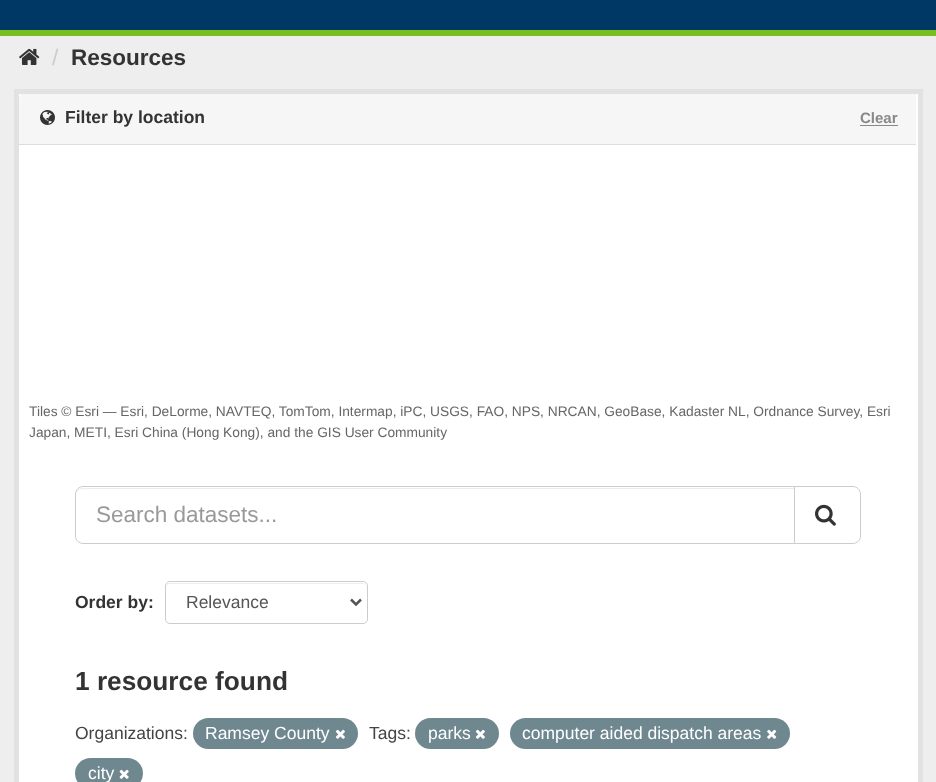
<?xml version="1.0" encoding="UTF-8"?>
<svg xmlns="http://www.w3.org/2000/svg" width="936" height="782">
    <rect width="100%" height="100%" fill="#78BE21"/>
    <rect x="0" y="0" width="936" height="30" fill="#003865"/>
    <rect x="0" y="36" width="936" height="746" fill="#EEEEEE"/>
    <image x="19" y="48" width="21" height="17" href="img_01.png"/>
    <text x="52" y="65" font-family="Liberation Sans" font-size="22.5" fill="#CCCCCC">/</text>
    <text x="71" y="65" font-family="Liberation Sans" font-size="22.5" font-weight="700" fill="#333333">Resources</text>
    <rect x="16.5" y="91.5" width="904" height="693" fill="none" stroke="#E2E2E2" stroke-width="5"/>
    <rect x="19" y="94" width="899" height="688" fill="#FFFFFF"/>
    <path d="M 23 94 H 916 V 145 H 19 V 98 C 19 96 21 94 23 94 Z" fill="#F6F6F6"/>
    <rect x="19" y="144" width="897" height="1" fill="#DDDDDD"/>
    <image x="40" y="110" width="15" height="15" href="img_02.png"/>
    <text x="65" y="123" font-family="Liberation Sans" font-size="17.5" font-weight="700" fill="#333333">Filter by location</text>
    <text x="860" y="123" font-family="Liberation Sans" font-size="15" font-weight="700" fill="#888888">Clear</text>
    <rect x="860" y="125" width="38" height="1" fill="#888888"/>
    <text font-family="Liberation Sans" font-size="13.75" fill="#666666">
        <tspan x="29" y="416">Tiles © Esri — Esri, DeLorme, NAVTEQ, TomTom, Intermap, iPC, USGS, FAO, NPS, NRCAN, GeoBase, Kadaster NL, Ordnance Survey, Esri</tspan>
        <tspan x="29" y="437">Japan, METI, Esri China (Hong Kong), and the GIS User Community</tspan>
    </text>
    <path d="M 82 489 H 794 V 488 H 82 C 78 488 76 491 76 495 C 76 492 79 489 82 489 Z" fill="#ECECEC"/>
    <path d="M 83 486.5 H 794.5 V 543.5 H 83 C 79 543.5 75.5 540 75.5 536 V 494 C 75.5 490 79 486.5 83 486.5 Z" fill="none" stroke="#CCCCCC"/>
    <text x="96" y="522" font-family="Liberation Sans" font-size="22.5" fill="#999999">Search datasets...</text>
    <path d="M 794.5 486.5 H 853 C 857 486.5 860.5 490 860.5 494 V 536 C 860.5 540 857 543.5 853 543.5 H 794.5 Z" fill="#FFFFFF" stroke="#CCCCCC"/>
    <image x="815" y="504" width="21" height="22" href="img_03.png"/>
    <text x="75" y="608" font-family="Liberation Sans" font-size="17.5" font-weight="700" fill="#333333">Order by:</text>
    <path d="M 170 584 H 362 C 365 584 366 585 366 588 V 587 C 366 585 364 583 362 583 H 170 C 168 583 166 585 166 587 V 588 C 166 585 168 584 170 584 Z" fill="#ECECEC"/>
    <rect x="165.5" y="581.5" width="202" height="42" rx="4.5" fill="none" stroke="#CCCCCC"/>
    <path d="M 351 599.5 L 356 604.5 L 361 599.5" fill="none" stroke="#555555" stroke-width="2.5"/>
    <text x="186" y="608" font-family="Liberation Sans" font-size="17.5" fill="#555555">Relevance</text>
    <text x="75" y="690" font-family="Liberation Sans" font-size="26.25" font-weight="700" fill="#333333">1 resource found</text>
    <text x="75" y="739" font-family="Liberation Sans" font-size="17.5" fill="#444444">Organizations:</text>
    <rect x="193" y="718" width="165" height="31" rx="15.5" fill="#6F8890"/>
    <text x="205" y="739" font-family="Liberation Sans" font-size="17.5" fill="#FFFFFF">Ramsey County</text>
    <image x="335" y="729" width="10" height="10" href="img_04.png"/>
    <text x="369" y="739" font-family="Liberation Sans" font-size="17.5" fill="#444444">Tags:</text>
    <rect x="415" y="718" width="84" height="31" rx="15.5" fill="#6F8890"/>
    <text x="428" y="739" font-family="Liberation Sans" font-size="17.5" fill="#FFFFFF">parks</text>
    <image x="475" y="729" width="10" height="10" href="img_04.png"/>
    <rect x="510" y="718" width="280" height="31" rx="15.5" fill="#6F8890"/>
    <text x="522" y="739" font-family="Liberation Sans" font-size="17.5" fill="#FFFFFF">computer aided dispatch areas</text>
    <image x="767" y="729" width="10" height="10" href="img_05.png"/>
    <rect x="75" y="758" width="68" height="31" rx="15.5" fill="#6F8890"/>
    <text x="88" y="779" font-family="Liberation Sans" font-size="17.5" fill="#FFFFFF">city</text>
    <image x="119" y="769" width="10" height="10" href="img_06.png"/>
</svg>
